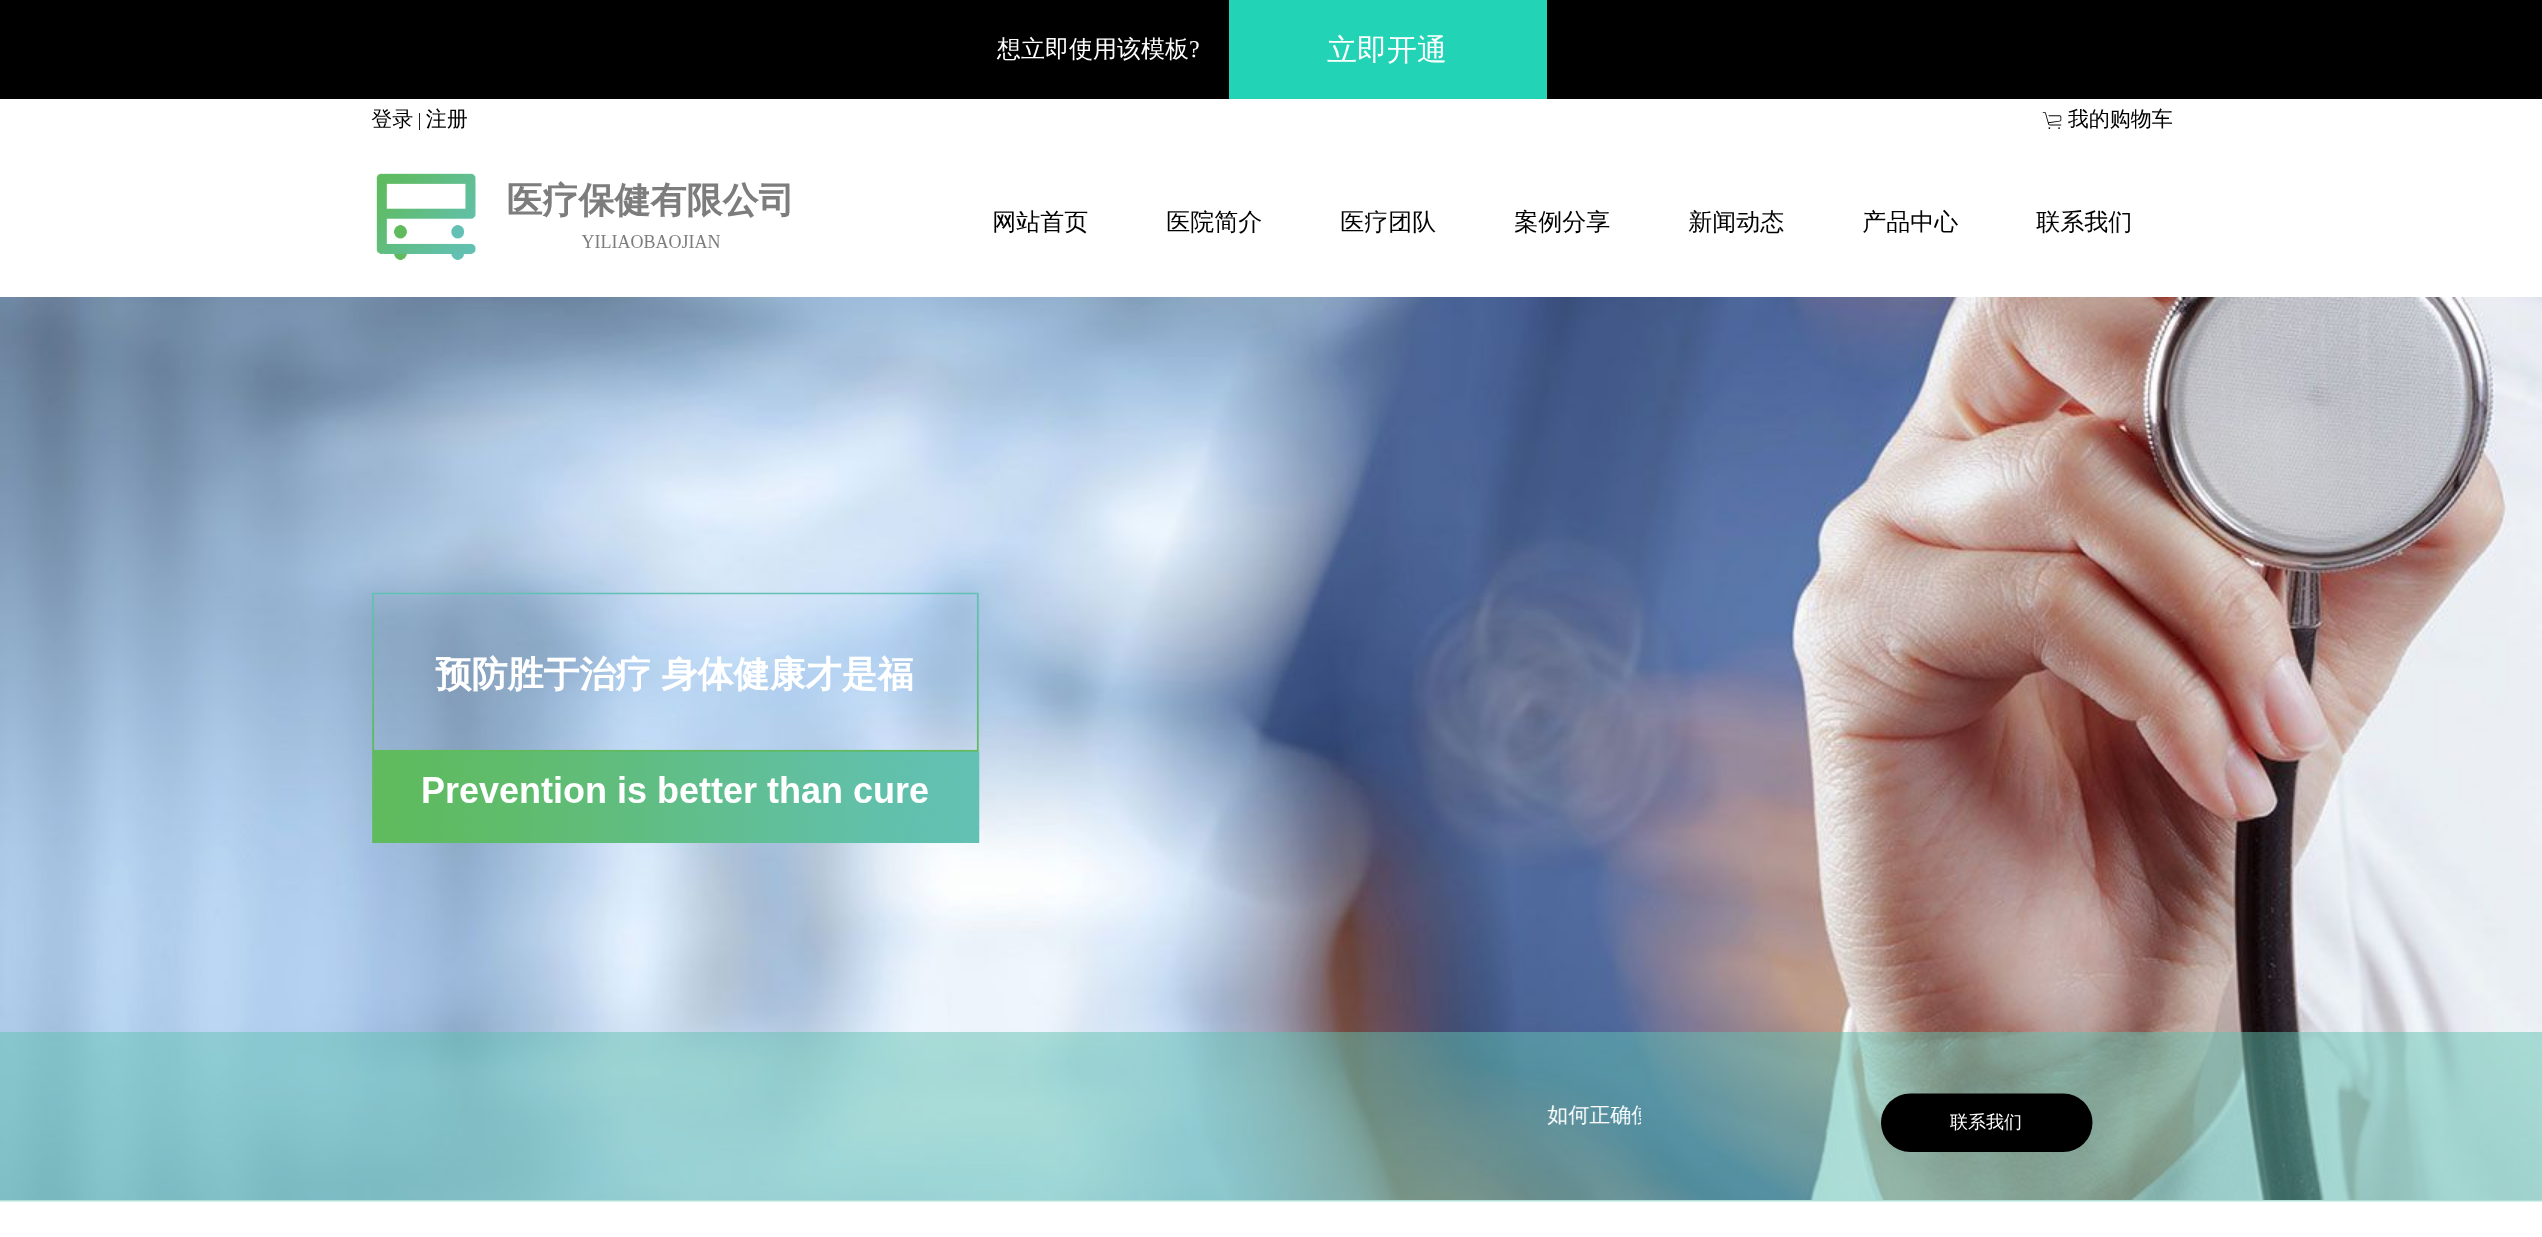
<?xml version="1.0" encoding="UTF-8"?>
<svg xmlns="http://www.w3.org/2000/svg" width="2542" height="1237">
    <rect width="100%" height="100%" fill="#FFFFFF"/>
    <rect x="0" y="0" width="2542" height="99" fill="#000000"/>
    <text x="997" y="57" font-family="WenQuanYi Zen Hei" font-size="24" font-weight="500" fill="#FFFFFF">想立即使用该模板</text>
    <text x="1189" y="57" font-family="Liberation Serif" font-size="24" fill="#FFFFFF">?</text>
    <rect x="1229" y="0" width="318" height="99" fill="#22D3B6"/>
    <text x="1327" y="60" font-family="WenQuanYi Zen Hei" font-size="30" font-weight="500" fill="#FFFFFF">立即开通</text>
    <image x="0" y="108" width="2542" height="1094" href="img_01.png"/>
</svg>
